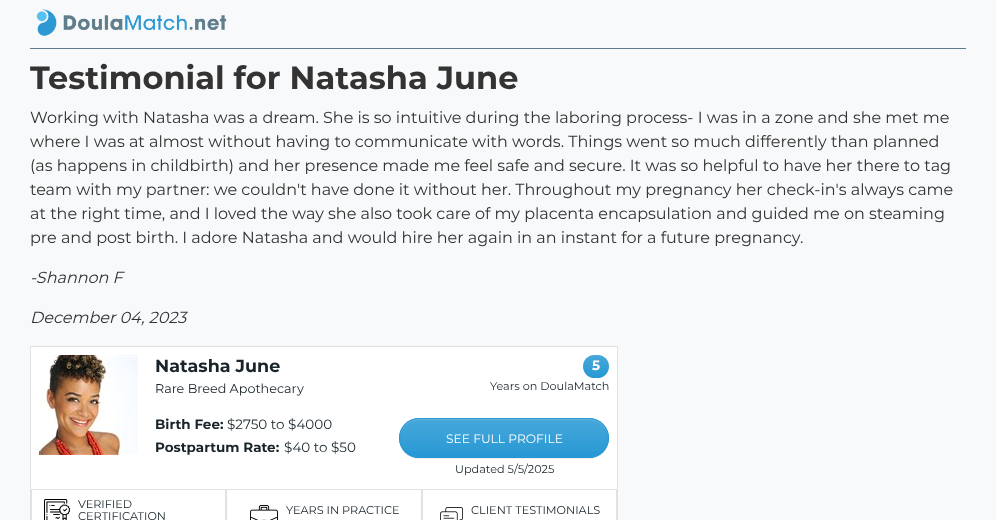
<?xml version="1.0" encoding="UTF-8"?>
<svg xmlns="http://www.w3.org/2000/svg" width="996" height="520">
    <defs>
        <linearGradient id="g1" gradientUnits="userSpaceOnUse" x1="596" y1="355" x2="596" y2="378"><stop offset="0" stop-color="#FFFFFF" stop-opacity="0.15"/><stop offset="1" stop-color="#FFFFFF" stop-opacity="0"/></linearGradient>
        <filter id="blur1" x="-50%" y="-200%" width="200%" height="500%"><feGaussianBlur stdDeviation="0.5"/></filter>
        <clipPath id="clip1"><rect x="399" y="418" width="210" height="40" rx="20"/></clipPath>
        <linearGradient id="g2" gradientUnits="userSpaceOnUse" x1="504" y1="419" x2="504" y2="457"><stop offset="0" stop-color="#FFFFFF" stop-opacity="0.15"/><stop offset="1" stop-color="#FFFFFF" stop-opacity="0"/></linearGradient>
    </defs>
    <rect width="100%" height="100%" fill="#F8F9FA"/>
    <image x="36" y="9" width="191" height="27" href="img_01.png"/>
    <rect x="30" y="48" width="936" height="1" fill="#5D7B8A"/>
    <text x="30" y="89" font-family="Montserrat" font-size="32" font-weight="100" fill="#333333">Testimonial for Natasha June</text>
    <text font-family="'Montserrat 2'" font-size="16" font-weight="100" fill="#333333">
        <tspan x="30" y="123">Working with Natasha was a dream. She is so intuitive during the laboring process- I was in a zone and she met me</tspan>
        <tspan x="30" y="147">where I was at almost without having to communicate with words. Things went so much differently than planned</tspan>
        <tspan x="30" y="171">(as happens in childbirth) and her presence made me feel safe and secure. It was so helpful to have her there to tag</tspan>
        <tspan x="30" y="195">team with my partner: we couldn't have done it without her. Throughout my pregnancy her check-in's always came</tspan>
        <tspan x="30" y="219">at the right time, and I loved the way she also took care of my placenta encapsulation and guided me on steaming</tspan>
        <tspan x="30" y="243">pre and post birth. I adore Natasha and would hire her again in an instant for a future pregnancy.</tspan>
    </text>
    <text x="30" y="283" font-family="Montserrat" font-size="16" font-weight="100" font-style="italic" fill="#333333">-Shannon F</text>
    <text x="30" y="323" font-family="Montserrat" font-size="16" font-weight="100" font-style="italic" fill="#333333">December 04, 2023</text>
    <rect x="30.5" y="346.5" width="587" height="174" fill="#FFFFFF" stroke="#E1E1E1"/>
    <image x="39" y="355" width="99" height="100" href="img_02.png"/>
    <text x="155" y="372" font-family="Montserrat" font-size="17.5" font-weight="100" fill="#19242A">Natasha June</text>
    <text x="155" y="393" font-family="'Montserrat 2'" font-size="12.75" font-weight="100" fill="#19242A">Rare Breed Apothecary</text>
    <text x="155" y="429" font-family="Montserrat" font-size="13.5" font-weight="100" fill="#19242A">Birth Fee:</text>
    <text x="227" y="429" font-family="'Montserrat 2'" font-size="13.5" font-weight="100" fill="#19242A">$2750 to $4000</text>
    <text x="155" y="452" font-family="Montserrat" font-size="13.5" font-weight="100" fill="#19242A">Postpartum Rate:</text>
    <text x="284" y="452" font-family="'Montserrat 2'" font-size="13.5" font-weight="100" fill="#19242A">$40 to $50</text>
    <rect x="583" y="355" width="26" height="23" rx="11.5" fill="#2798D4"/>
    <rect x="583" y="355" width="26" height="23" rx="11.5" fill="url(#g1)"/>
    <text x="592" y="370" font-family="Montserrat" font-size="13.5" font-weight="100" fill="#FFFFFF">5</text>
    <text x="490" y="390" font-family="'Montserrat 2'" font-size="11.25" font-weight="100" fill="#19242A">Years on DoulaMatch</text>
    <rect x="399" y="419" width="210" height="40" rx="20" fill="#000000" fill-opacity="0.07" filter="url(#blur1)"/>
    <rect x="399" y="418" width="210" height="40" rx="20" fill="#2798D4"/>
    <g clip-path="url(#clip1)">
        <rect x="399" y="419" width="210" height="33" fill="url(#g2)"/>
    </g>
    <path d="M 419 420 H 589 C 599 420 608 429 608 439 V 438 C 608 428 599 419 589 419 H 419 C 409 419 400 428 400 438 V 439 C 400 429 409 420 419 420 Z" fill="#FFFFFF" fill-opacity="0.15"/>
    <rect x="399.5" y="418.5" width="209" height="39" rx="19.5" fill="none" stroke="#2798D4"/>
    <text x="446" y="443" font-family="'Montserrat 2'" font-size="12.25" font-weight="100" fill="#FFFFFF">SEE FULL PROFILE</text>
    <text x="455" y="473" font-family="'Montserrat 2'" font-size="11.25" font-weight="100" fill="#19242A">Updated 5/5/2025</text>
    <rect x="31.5" y="489.5" width="194" height="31" fill="none" stroke="#E1E1E1"/>
    <image x="44" y="499" width="26" height="21" href="img_03.png"/>
    <text font-family="'Montserrat 2'" font-size="11.25" font-weight="100" fill="#19242A">
        <tspan x="78" y="508">VERIFIED</tspan>
        <tspan x="78" y="520">CERTIFICATION</tspan>
    </text>
    <rect x="226.5" y="489.5" width="195" height="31" fill="none" stroke="#E1E1E1"/>
    <image x="250" y="505" width="28" height="15" href="img_04.png"/>
    <text x="286" y="514" font-family="'Montserrat 2'" font-size="11.25" font-weight="100" fill="#19242A">YEARS IN PRACTICE</text>
    <rect x="422.5" y="489.5" width="194" height="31" fill="none" stroke="#E1E1E1"/>
    <image x="440" y="507" width="23" height="13" href="img_05.png"/>
    <text x="471" y="514" font-family="'Montserrat 2'" font-size="11.25" font-weight="100" fill="#19242A">CLIENT TESTIMONIALS</text>
</svg>
